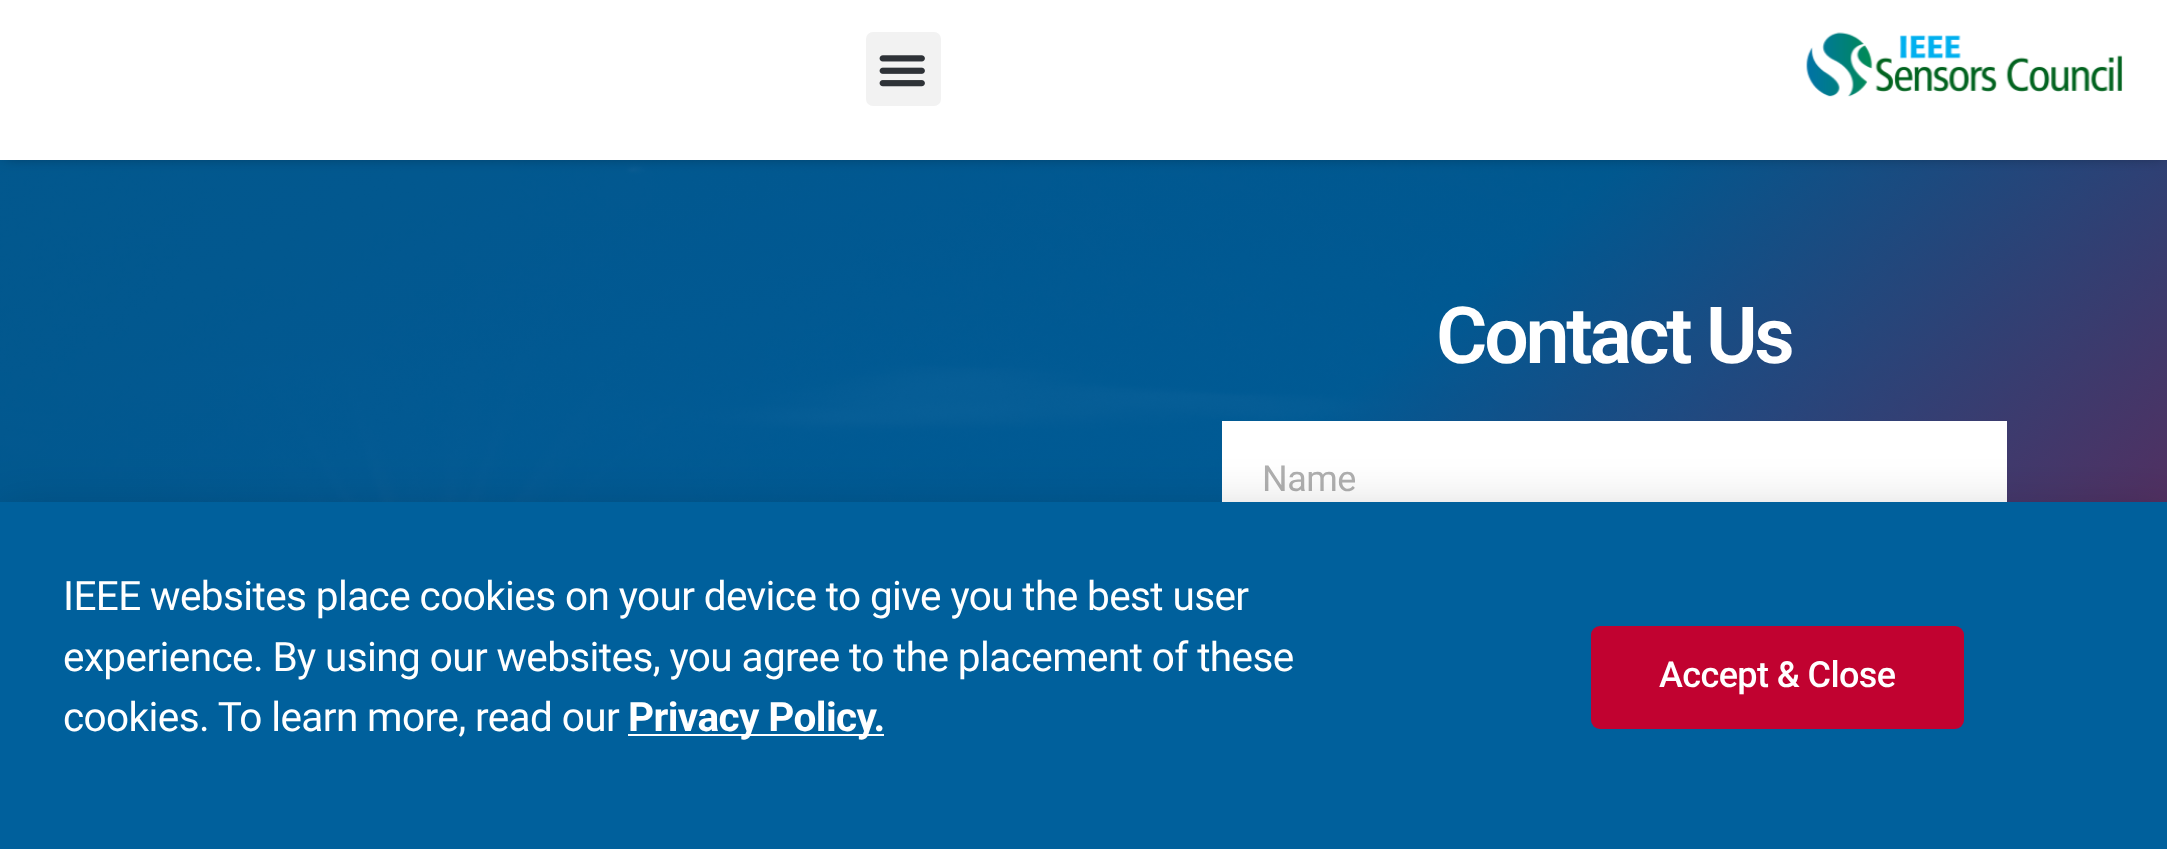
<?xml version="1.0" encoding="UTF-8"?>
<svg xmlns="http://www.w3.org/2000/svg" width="2167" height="849">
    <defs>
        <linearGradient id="g1" gradientUnits="userSpaceOnUse" x1="324" y1="-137" x2="1845" y2="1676"><stop offset="0.45" stop-color="#00609C" stop-opacity="0.9"/><stop offset="1" stop-color="#C10230" stop-opacity="0.9"/></linearGradient>
        <filter id="blur1" x="-50%" y="-200%" width="200%" height="500%"><feGaussianBlur stdDeviation="8"/></filter>
        <filter id="blur2" x="-50%" y="-200%" width="200%" height="500%"><feGaussianBlur stdDeviation="26"/></filter>
    </defs>
    <rect width="100%" height="100%" fill="#FFFFFF"/>
    <image x="0" y="160" width="2167" height="342" href="img_03.png"/>
    <rect x="0" y="160" width="2167" height="342" fill="url(#g1)"/>
    <rect x="5" y="5" width="2160" height="150" fill="#000000" fill-opacity="0.5" filter="url(#blur1)"/>
    <rect x="0" y="0" width="2167" height="160" fill="#FFFFFF"/>
    <rect x="866" y="32" width="75" height="74" rx="7" fill="#F2F2F2"/>
    <image x="879" y="55" width="46" height="32" href="img_01.png"/>
    <image x="1806" y="32" width="317" height="65" href="img_02.png"/>
    <text x="1436" y="363" font-family="Roboto" font-size="78.75" font-weight="600" letter-spacing="-3.25" fill="#FFFFFF">Contact Us</text>
    <rect x="1222" y="421" width="785" height="81" fill="#FFFFFF"/>
    <text x="1262" y="491" font-family="Roboto" font-size="36" letter-spacing="-0.5" fill="#AFAFAF">Name</text>
    <rect x="-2" y="513" width="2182" height="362" fill="#000000" fill-opacity="0.2" filter="url(#blur2)"/>
    <rect x="0" y="502" width="2167" height="347" fill="#00609C"/>
    <text font-family="Roboto" font-size="40.5" letter-spacing="-0.6" fill="#FFFFFF">
        <tspan x="63" y="610">IEEE websites place cookies on your device to give you the best user</tspan>
        <tspan x="63" y="671">experience. By using our websites, you agree to the placement of these</tspan>
        <tspan x="63" y="731">cookies. To learn more, read our</tspan>
    </text>
    <rect x="628" y="734" width="256" height="2" fill="#FFFFFF"/>
    <text x="628" y="731" font-family="Roboto" font-size="40.5" font-weight="700" letter-spacing="-0.6" fill="#FFFFFF">Privacy Policy.</text>
    <rect x="1591" y="626" width="373" height="103" rx="9" fill="#C10230"/>
    <text x="1659" y="687" font-family="Roboto" font-size="36" font-weight="500" letter-spacing="-0.6" fill="#FFFFFF">Accept &amp; Close</text>
</svg>
